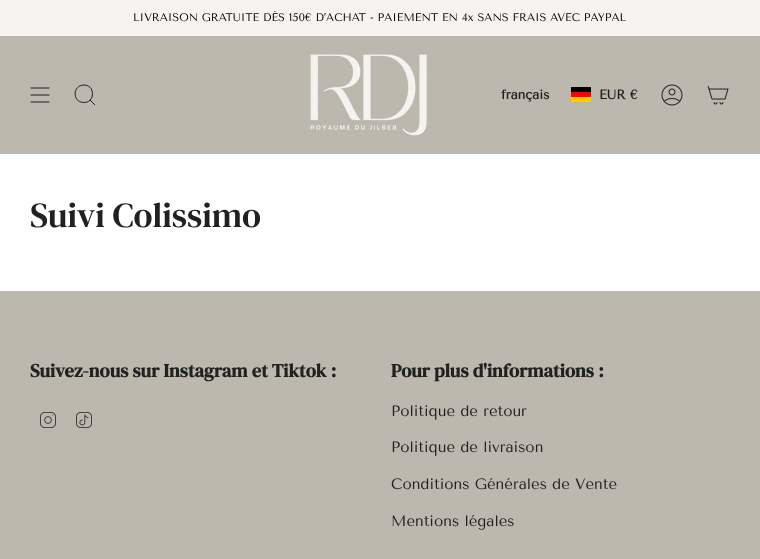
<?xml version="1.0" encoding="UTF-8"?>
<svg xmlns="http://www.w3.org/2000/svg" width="760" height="559">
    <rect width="100%" height="100%" fill="#FFFFFF"/>
    <rect x="0" y="0" width="760" height="36" fill="#F6F4F0"/>
    <text x="133" y="21" font-family="Tenor Sans" font-size="11" fill="#000000">LIVRAISON GRATUITE DÈS 150€ D’ACHAT - PAIEMENT EN 4x SANS FRAIS AVEC PAYPAL</text>
    <rect x="0" y="36" width="760" height="118" fill="#BDB8AE"/>
    <path d="M 31 88 H 49 M 31 95 H 49 M 31 102 H 49" fill="none" stroke="#212121" stroke-linecap="round" stroke-linejoin="round"/>
    <path d="M 84 85 C 95.5 85 95.5 103 83.5 102.5 C 72 102 72.5 85 84 85 Z M 90 100 L 95 105" fill="none" stroke="#212121"/>
    <image x="310" y="54" width="117" height="82" href="img_01.png"/>
    <text x="501" y="99" font-family="Tenor Sans" font-size="13" font-weight="700" fill="#212121">français</text>
    <rect x="571" y="97" width="20" height="5" fill="#FFCC00"/>
    <rect x="571" y="87" width="20" height="5" fill="#000000"/>
    <rect x="571" y="92" width="20" height="5" fill="#FF0000"/>
    <text x="599" y="99" font-family="Tenor Sans" font-size="13" font-weight="700" fill="#212121">EUR €</text>
    <image x="661" y="84" width="22" height="22" href="img_02.png"/>
    <image x="707" y="86" width="22" height="19" href="img_03.png"/>
    <text x="30" y="227" font-family="DM Serif Text" font-size="35" fill="#212121">Suivi Colissimo</text>
    <rect x="0" y="291" width="760" height="268" fill="#BDB8AE"/>
    <text x="30" y="377" font-family="DM Serif Text" font-size="18.75" font-weight="700" fill="#212121">Suivez-nous sur Instagram et Tiktok :</text>
    <image x="40" y="412" width="16" height="16" href="img_04.png"/>
    <image x="76" y="412" width="16" height="16" href="img_05.png"/>
    <text x="391" y="377" font-family="DM Serif Text" font-size="18.75" font-weight="700" fill="#212121">Pour plus d'informations :</text>
    <text x="391" y="416" font-family="Tenor Sans" font-size="15" fill="#212121">Politique de retour</text>
    <text x="391" y="452" font-family="Tenor Sans" font-size="15" fill="#212121">Politique de livraison</text>
    <text x="391" y="489" font-family="Tenor Sans" font-size="15" fill="#212121">Conditions Générales de Vente</text>
    <text x="391" y="526" font-family="Tenor Sans" font-size="15" fill="#212121">Mentions légales</text>
</svg>
